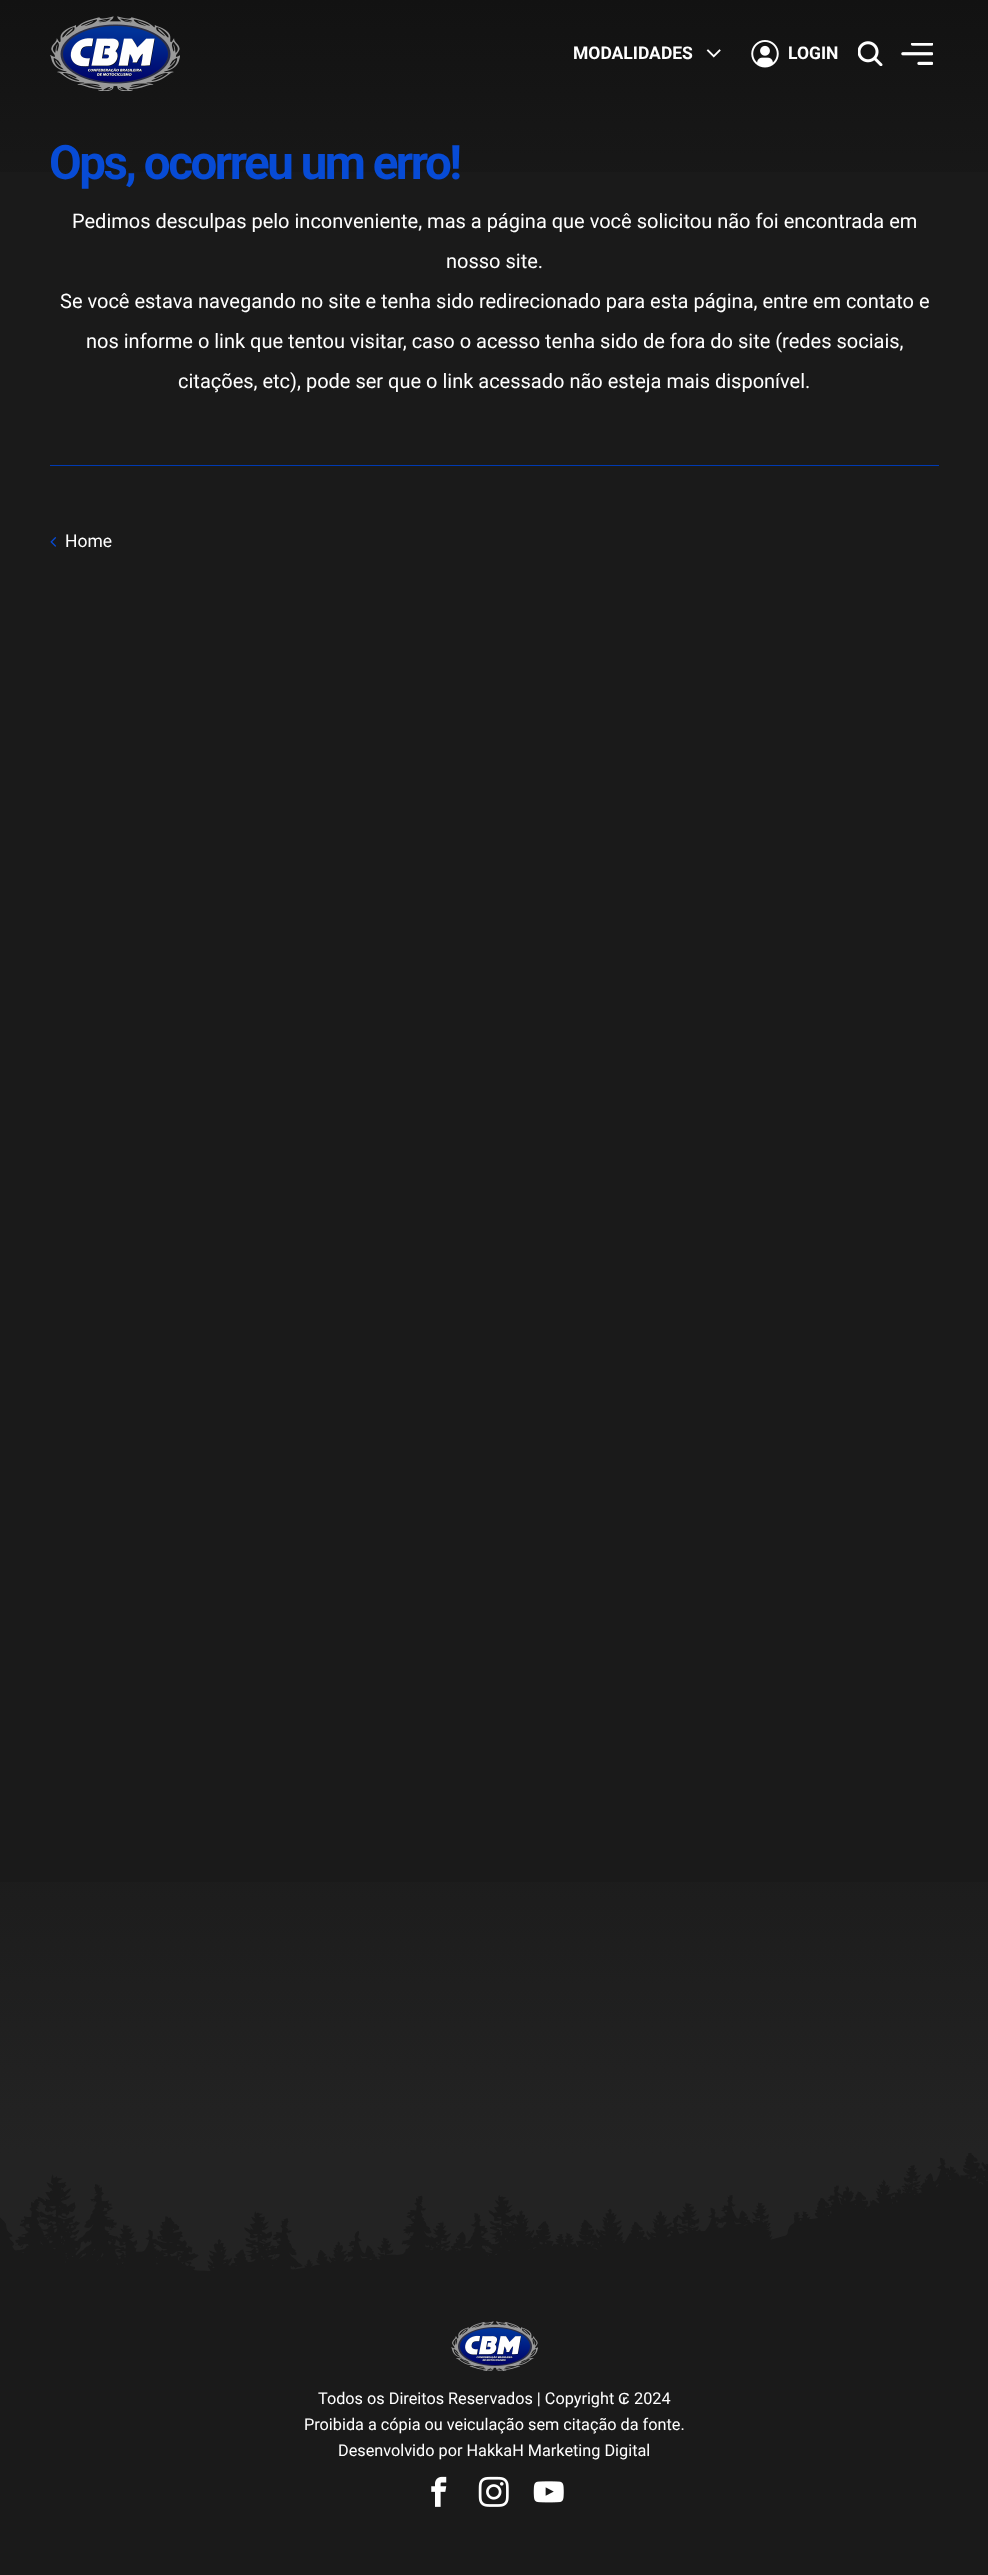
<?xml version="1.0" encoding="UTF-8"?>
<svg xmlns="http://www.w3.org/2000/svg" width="988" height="2575">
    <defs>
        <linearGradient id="g1" gradientUnits="userSpaceOnUse" x1="494" y1="0" x2="494" y2="250"><stop offset="0" stop-color="#121212"/><stop offset="1" stop-color="#1A1A1A"/></linearGradient>
        <linearGradient id="g2" gradientUnits="userSpaceOnUse" x1="494" y1="1778" x2="494" y2="2153"><stop offset="0" stop-color="#1A1A1A"/><stop offset="1" stop-color="#232323"/></linearGradient>
    </defs>
    <rect width="100%" height="100%" fill="#1A1A1A"/>
    <rect x="0" y="0" width="988" height="172" fill="url(#g1)"/>
    <image x="50" y="16" width="130" height="75" href="img_01.png"/>
    <text x="573" y="59" font-family="Roboto" font-size="17.5" font-weight="700" fill="#FFFFFF">MODALIDADES</text>
    <image x="706" y="49" width="15" height="9" href="img_02.png"/>
    <image x="751" y="40" width="28" height="28" href="img_03.png"/>
    <text x="788" y="59" font-family="Roboto" font-size="17.5" font-weight="700" fill="#FFFFFF">LOGIN</text>
    <image x="858" y="41" width="25" height="25" href="img_04.png"/>
    <image x="901" y="43" width="32" height="22" href="img_05.png"/>
    <text x="49" y="179" font-family="Roboto" font-size="47.5" font-weight="700" letter-spacing="-2.5" fill="#074BD5">Ops, ocorreu um erro!</text>
    <text x="72" y="228" font-family="Roboto" font-size="20" fill="#FFFFFF">Pedimos desculpas pelo inconveniente, mas a página que você solicitou não foi encontrada em</text>
    <text x="446" y="268" font-family="Roboto" font-size="20" fill="#FFFFFF">nosso site.</text>
    <text x="60" y="308" font-family="Roboto" font-size="20" fill="#FFFFFF">Se você estava navegando no site e tenha sido redirecionado para esta página, entre em contato e</text>
    <text x="86" y="348" font-family="Roboto" font-size="20" fill="#FFFFFF">nos informe o link que tentou visitar, caso o acesso tenha sido de fora do site (redes sociais,</text>
    <text x="178" y="388" font-family="Roboto" font-size="20" fill="#FFFFFF">citações, etc), pode ser que o link acessado não esteja mais disponível.</text>
    <rect x="50" y="465" width="889" height="1" fill="#003AB2"/>
    <image x="50" y="537" width="7" height="10" href="img_06.png"/>
    <text x="65" y="547" font-family="Roboto" font-size="17.5" fill="#FFFFFF">Home</text>
    <rect x="0" y="1882" width="988" height="271" fill="url(#g2)"/>
    <rect x="0" y="2153" width="988" height="118" fill="#232323"/>
    <image x="0" y="2153" width="988" height="118" href="img_07.png"/>
    <image x="451" y="2321" width="87" height="50" href="img_08.png"/>
    <text x="318" y="2404" font-family="Roboto" font-size="16.25" fill="#FFFFFF">Todos os Direitos Reservados | Copyright</text>
    <text x="618" y="2404" font-family="Liberation Sans" font-size="16.25" fill="#FFFFFF">₢</text>
    <text x="634" y="2404" font-family="Roboto" font-size="16.25" fill="#FFFFFF">2024</text>
    <text x="304" y="2430" font-family="Roboto" font-size="16.25" fill="#FFFFFF">Proibida a cópia ou veiculação sem citação da fonte.</text>
    <text x="338" y="2456" font-family="Roboto" font-size="16.25" fill="#FFFFFF">Desenvolvido por HakkaH Marketing Digital</text>
    <image x="431" y="2476" width="16" height="31" href="img_09.png"/>
    <image x="478" y="2476" width="31" height="31" href="img_10.png"/>
    <image x="533" y="2481" width="31" height="22" href="img_11.png"/>
</svg>
